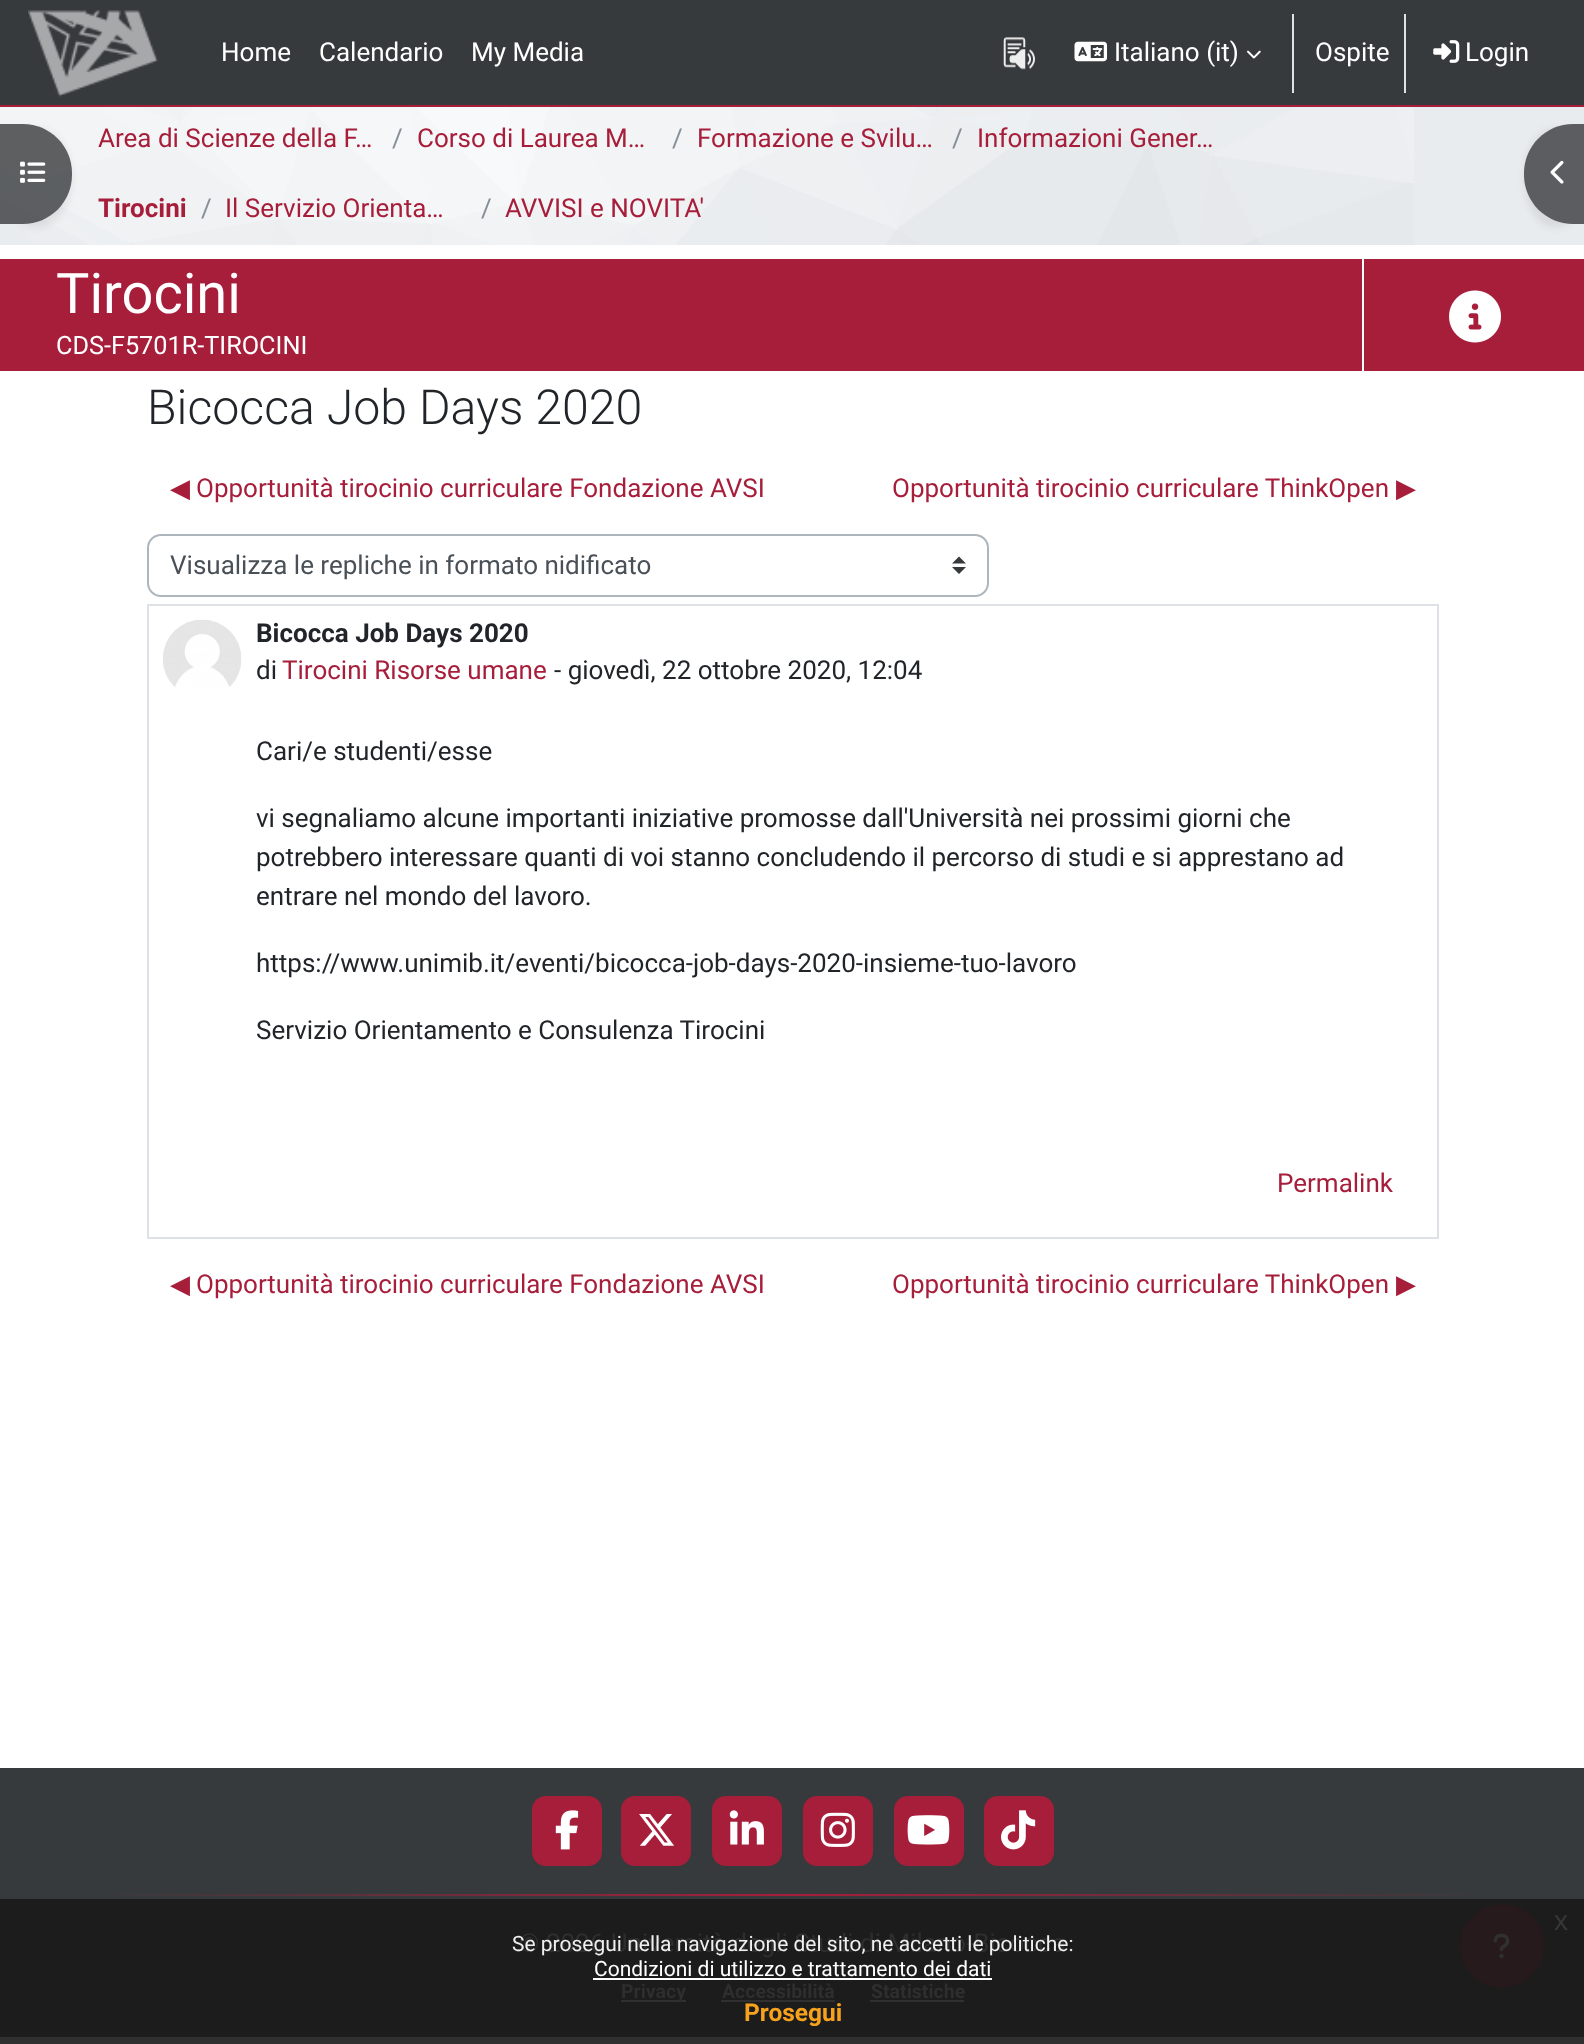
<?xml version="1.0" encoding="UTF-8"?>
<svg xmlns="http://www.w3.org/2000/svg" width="1584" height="2044">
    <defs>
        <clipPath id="clip1"><path d="M 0 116 H 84 V 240 H 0 Z M 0 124 H 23 C 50 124 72 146 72 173 V 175 C 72 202 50 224 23 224 H 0 Z" clip-rule="evenodd"/></clipPath>
        <filter id="blur1" x="-50%" y="-200%" width="200%" height="500%"><feGaussianBlur stdDeviation="3.5"/></filter>
        <clipPath id="clip2"><path d="M 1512 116 H 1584 V 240 H 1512 Z M 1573 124 H 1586 V 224 H 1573 C 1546 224 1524 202 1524 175 V 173 C 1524 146 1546 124 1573 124 Z" clip-rule="evenodd"/></clipPath>
        <linearGradient id="g1" gradientUnits="userSpaceOnUse" x1="103" y1="1894" x2="1482" y2="1894"><stop offset="0" stop-color="#373A3C"/><stop offset="0.5" stop-color="#A71E3B"/><stop offset="1" stop-color="#373A3C"/></linearGradient>
    </defs>
    <rect width="100%" height="100%" fill="#FFFFFF"/>
    <rect x="0" y="2037" width="1584" height="7" fill="#303030"/>
    <rect x="0" y="0" width="1584" height="105" fill="#373A3C"/>
    <rect x="0" y="105" width="1584" height="2" fill="#A71E3B"/>
    <image x="28" y="10" width="130" height="87" href="img_01.png"/>
    <text x="221" y="61" font-family="Roboto" font-size="26" fill="#FFFFFF">Home</text>
    <text x="319" y="61" font-family="Roboto" font-size="26" fill="#FFFFFF">Calendario</text>
    <text x="471" y="61" font-family="Roboto" font-size="26" fill="#FFFFFF">My Media</text>
    <image x="1003" y="37" width="32" height="33" href="img_02.png"/>
    <image x="1074" y="41" width="34" height="21" href="img_03.png"/>
    <text x="1114" y="61" font-family="Roboto" font-size="26" fill="#FFFFFF">Italiano (it)</text>
    <image x="1247" y="50" width="14" height="9" href="img_04.png"/>
    <rect x="1292" y="14" width="2" height="79" fill="#DEE2E6"/>
    <text x="1315" y="61" font-family="Roboto" font-size="26" fill="#FFFFFF">Ospite</text>
    <rect x="1404" y="14" width="2" height="79" fill="#DEE2E6"/>
    <image x="1433" y="40" width="27" height="23" href="img_05.png"/>
    <text x="1465" y="61" font-family="Roboto" font-size="26" fill="#FFFFFF">Login</text>
    <image x="0" y="107" width="1414" height="138" href="img_08.png"/>
    <g clip-path="url(#clip1)">
        <rect x="0" y="128" width="72" height="100" rx="49" fill="#000000" fill-opacity="0.07" filter="url(#blur1)"/>
    </g>
    <path d="M 0 124 H 23 C 50 124 72 146 72 173 V 175 C 72 202 50 224 23 224 H 0 Z" fill="#373A3C" fill-opacity="0.8"/>
    <image x="20" y="161" width="26" height="22" href="img_06.png"/>
    <rect x="1414" y="107" width="170" height="138" fill="#E9ECEF"/>
    <g clip-path="url(#clip2)">
        <rect x="1524" y="128" width="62" height="100" rx="49" fill="#000000" fill-opacity="0.07" filter="url(#blur1)"/>
    </g>
    <path d="M 1573 124 H 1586 V 224 H 1573 C 1546 224 1524 202 1524 175 V 173 C 1524 146 1546 124 1573 124 Z" fill="#373A3C" fill-opacity="0.8"/>
    <image x="1550" y="160" width="14" height="24" href="img_07.png"/>
    <text x="98" y="147" font-family="Roboto" font-size="26" fill="#A71E3B">Area di Scienze della F…</text>
    <text x="392" y="147" font-family="Roboto" font-size="26" fill="#868E96">/</text>
    <text x="417" y="147" font-family="Roboto" font-size="26" fill="#A71E3B">Corso di Laurea M…</text>
    <text x="672" y="147" font-family="Roboto" font-size="26" fill="#868E96">/</text>
    <text x="697" y="147" font-family="Roboto" font-size="26" fill="#A71E3B">Formazione e Svilu…</text>
    <text x="952" y="147" font-family="Roboto" font-size="26" fill="#868E96">/</text>
    <text x="977" y="147" font-family="Roboto" font-size="26" fill="#A71E3B">Informazioni Gener…</text>
    <text x="98" y="217" font-family="Roboto" font-size="26" font-weight="700" fill="#A71E3B">Tirocini</text>
    <text x="201" y="217" font-family="Roboto" font-size="26" fill="#868E96">/</text>
    <text x="225" y="217" font-family="Roboto" font-size="26" fill="#A71E3B">Il Servizio Orienta…</text>
    <text x="481" y="217" font-family="Roboto" font-size="26" fill="#868E96">/</text>
    <text x="505" y="217" font-family="Roboto" font-size="26" fill="#A71E3B">AVVISI e NOVITA'</text>
    <rect x="0" y="259" width="1584" height="112" fill="#A71E3B"/>
    <text x="56" y="313" font-family="Roboto" font-size="56" fill="#FFFFFF">Tirocini</text>
    <text x="56" y="354" font-family="Roboto" font-size="25.25" fill="#FFFFFF">CDS-F5701R-TIROCINI</text>
    <rect x="1362" y="259" width="2" height="112" fill="#FFFFFF"/>
    <image x="1449" y="290" width="52" height="53" href="img_09.png"/>
    <text x="147" y="424" font-family="Roboto" font-size="48.25" font-weight="300" fill="#212529">Bicocca Job Days 2020</text>
    <text x="170" y="497" font-family="DejaVu Sans" font-size="26" fill="#A71E3B">◀︎</text>
    <text x="196" y="497" font-family="Roboto" font-size="26" fill="#A71E3B">Opportunità tirocinio curriculare Fondazione AVSI</text>
    <text x="892" y="497" font-family="Roboto" font-size="26" fill="#A71E3B">Opportunità tirocinio curriculare ThinkOpen</text>
    <text x="1396" y="497" font-family="DejaVu Sans" font-size="26" fill="#A71E3B">▶︎</text>
    <path d="M 959 556.5 L 952 563.5 H 966 Z M 959 574 L 952 567 H 966 Z" fill="#373A3C"/>
    <rect x="148" y="535" width="840" height="61" rx="13" fill="none" stroke="#ADB5BD" stroke-width="2"/>
    <text x="170" y="574" font-family="Roboto" font-size="26" fill="#495057">Visualizza le repliche in formato nidificato</text>
    <rect x="148" y="605" width="1290" height="633" fill="none" stroke="#DEE2E6" stroke-width="2"/>
    <image x="163" y="619" width="79" height="68" href="img_10.png"/>
    <text x="256" y="642" font-family="Roboto" font-size="26" font-weight="700" fill="#212529">Bicocca Job Days 2020</text>
    <text x="256" y="679" font-family="Roboto" font-size="26" fill="#212529">di</text>
    <text x="282" y="679" font-family="Roboto" font-size="26" fill="#A71E3B">Tirocini Risorse umane</text>
    <text x="554" y="679" font-family="Roboto" font-size="26" fill="#212529">- giovedì, 22 ottobre 2020, 12:04</text>
    <text x="256" y="760" font-family="Roboto" font-size="26" fill="#212529">Cari/e studenti/esse</text>
    <text font-family="Roboto" font-size="26" fill="#212529">
        <tspan x="256" y="827">vi segnaliamo alcune importanti iniziative promosse dall'Università nei prossimi giorni che</tspan>
        <tspan x="256" y="866">potrebbero interessare quanti di voi stanno concludendo il percorso di studi e si apprestano ad</tspan>
        <tspan x="256" y="905">entrare nel mondo del lavoro.</tspan>
    </text>
    <text x="256" y="972" font-family="Roboto" font-size="26" fill="#212529">https://www.unimib.it/eventi/bicocca-job-days-2020-insieme-tuo-lavoro</text>
    <text x="256" y="1039" font-family="Roboto" font-size="26" fill="#212529">Servizio Orientamento e Consulenza Tirocini</text>
    <text x="1277" y="1192" font-family="Roboto" font-size="26" fill="#A71E3B">Permalink</text>
    <text x="170" y="1293" font-family="DejaVu Sans" font-size="26" fill="#A71E3B">◀︎</text>
    <text x="196" y="1293" font-family="Roboto" font-size="26" fill="#A71E3B">Opportunità tirocinio curriculare Fondazione AVSI</text>
    <text x="892" y="1293" font-family="Roboto" font-size="26" fill="#A71E3B">Opportunità tirocinio curriculare ThinkOpen</text>
    <text x="1396" y="1293" font-family="DejaVu Sans" font-size="26" fill="#A71E3B">▶︎</text>
    <rect x="0" y="1768" width="1584" height="131" fill="#373A3C"/>
    <rect x="0" y="1899" width="1584" height="138" fill="#1C1C1D"/>
    <rect x="532" y="1796" width="70" height="70" rx="14" fill="#A71E3B"/>
    <image x="555" y="1810" width="24" height="40" href="img_11.png"/>
    <rect x="621" y="1796" width="70" height="70" rx="14" fill="#A71E3B"/>
    <image x="639" y="1814" width="35" height="32" href="img_12.png"/>
    <rect x="712" y="1796" width="70" height="70" rx="14" fill="#A71E3B"/>
    <image x="729" y="1810" width="35" height="35" href="img_13.png"/>
    <rect x="803" y="1796" width="70" height="70" rx="14" fill="#A71E3B"/>
    <image x="820" y="1812" width="35" height="35" href="img_14.png"/>
    <rect x="894" y="1796" width="70" height="70" rx="14" fill="#A71E3B"/>
    <image x="907" y="1815" width="43" height="30" href="img_15.png"/>
    <rect x="984" y="1796" width="70" height="70" rx="14" fill="#A71E3B"/>
    <image x="1001" y="1810" width="35" height="40" href="img_16.png"/>
    <rect x="118" y="1894" width="1349" height="2" fill="url(#g1)"/>
    <text x="519" y="1952" font-family="Roboto" font-size="26" fill="#2E2E2E">© 2026 Università degli Studi di Milano-Bicocca</text>
    <rect x="621" y="2000" width="65" height="2" fill="#303030"/>
    <text x="621" y="1998" font-family="Roboto" font-size="19.5" font-weight="700" fill="#2E2E2E">Privacy</text>
    <text x="722" y="1998" font-family="Roboto" font-size="19.5" font-weight="700" fill="#2E2E2E">Accessibilità</text>
    <rect x="721" y="2000" width="114" height="2" fill="#303030"/>
    <text x="871" y="1998" font-family="Roboto" font-size="19.5" font-weight="700" fill="#2E2E2E">Statistiche</text>
    <rect x="870" y="2000" width="94" height="2" fill="#303030"/>
    <circle cx="1502" cy="1946" r="41" fill="#271A1C" stroke="#271A1C" stroke-width="2"/>
    <image x="1493" y="1933" width="17" height="26" href="img_17.png"/>
    <text x="1554" y="1930" font-family="Liberation Sans" font-size="28" fill="#373737">x</text>
    <text x="512" y="1951" font-family="Roboto" font-size="21" fill="#EFEFEF">Se prosegui nella navigazione del sito, ne accetti le politiche:</text>
    <text x="594" y="1976" font-family="Roboto" font-size="21" fill="#FFFFFF">Condizioni di utilizzo e trattamento dei dati</text>
    <rect x="593" y="1978" width="399" height="2" fill="#FFFFFF"/>
    <text x="744" y="2021" font-family="Roboto" font-size="24.5" font-weight="700" fill="#F6A21D">Prosegui</text>
</svg>
